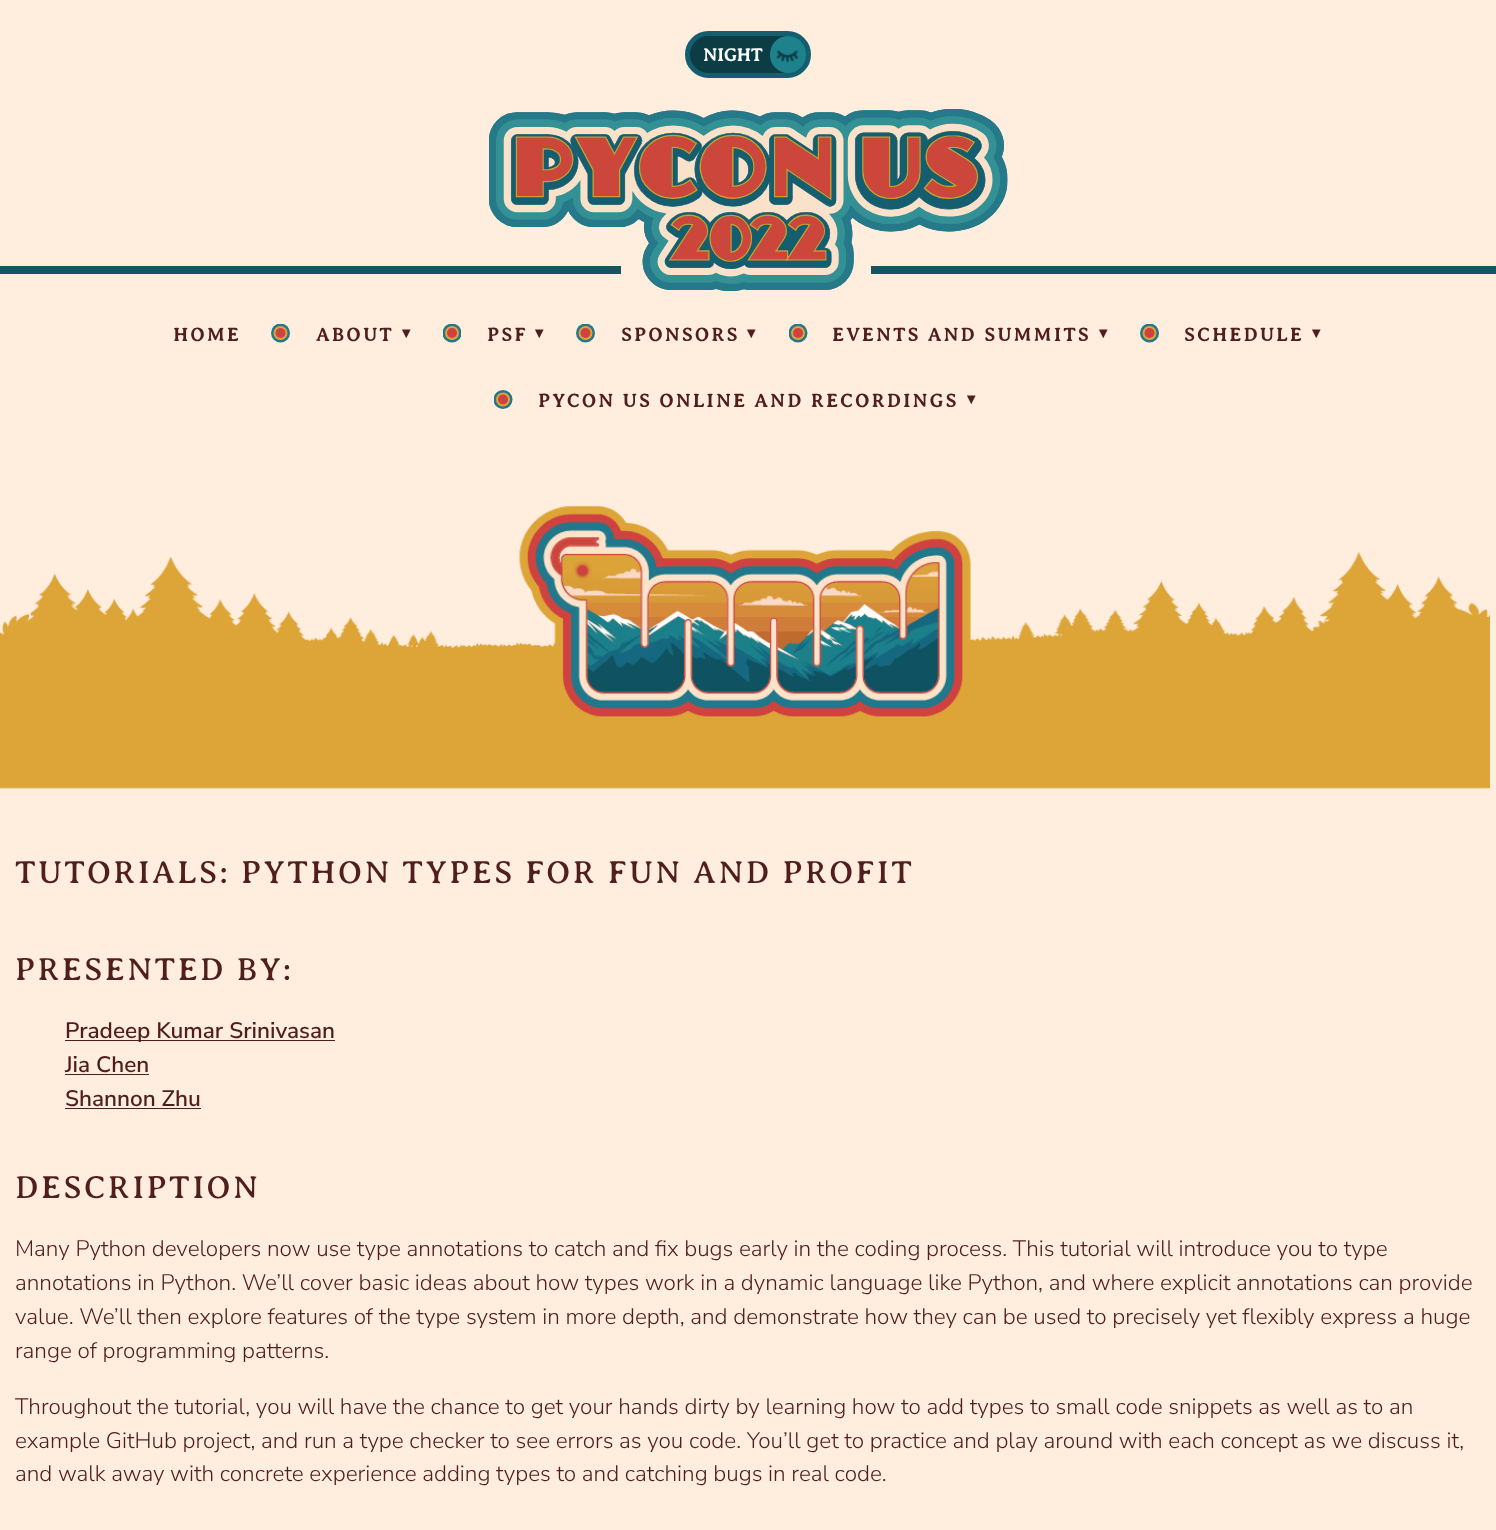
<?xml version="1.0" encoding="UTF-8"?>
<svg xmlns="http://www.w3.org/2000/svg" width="1496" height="1530">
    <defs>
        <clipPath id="clip1"><rect x="271" y="324" width="19" height="19"/></clipPath>
        <clipPath id="clip2"><rect x="443" y="324" width="18" height="19"/></clipPath>
        <clipPath id="clip3"><rect x="576" y="324" width="19" height="19"/></clipPath>
        <clipPath id="clip4"><rect x="789" y="324" width="19" height="19"/></clipPath>
        <clipPath id="clip5"><rect x="1140" y="324" width="19" height="19"/></clipPath>
        <clipPath id="clip6"><rect x="494" y="390" width="19" height="19"/></clipPath>
    </defs>
    <rect width="100%" height="100%" fill="#FFEDDE"/>
    <rect x="687.5" y="33.5" width="121" height="42" rx="21" fill="#0C3C44" stroke="#145E70" stroke-width="5"/>
    <text x="703" y="61" font-family="Averia Serif Libre" font-size="18" font-weight="700" fill="#FFFFFF">NIGHT</text>
    <rect x="770" y="36" width="36" height="37" rx="18" fill="#1D828B"/>
    <image x="776" y="50" width="23" height="13" href="img_01.png"/>
    <rect x="0" y="266" width="1496" height="8" fill="#145562"/>
    <rect x="621" y="266" width="250" height="8" fill="#FFEDDE"/>
    <image x="489" y="109" width="519" height="182" href="img_02.png"/>
    <text x="173" y="341" font-family="Averia Serif Libre" font-size="18.75" font-weight="700" letter-spacing="2.5" fill="#501E1C">HOME</text>
    <g clip-path="url(#clip1)">
        <circle cx="280.5" cy="333" r="9.5" fill="#24788B"/>
    </g>
    <circle cx="280.5" cy="333" r="7" fill="#DCA538"/>
    <circle cx="280.5" cy="333" r="5" fill="#CF423F"/>
    <text x="316" y="341" font-family="Averia Serif Libre" font-size="18.75" font-weight="700" letter-spacing="2.5" fill="#501E1C">ABOUT</text>
    <text x="402" y="338" font-family="DejaVu Sans" font-size="16" font-weight="700" letter-spacing="2.5" fill="#501E1C">▾</text>
    <g clip-path="url(#clip2)">
        <circle cx="452" cy="333" r="9.5" fill="#24788B"/>
    </g>
    <circle cx="452" cy="333" r="7" fill="#DCA538"/>
    <circle cx="452" cy="333" r="5" fill="#CF423F"/>
    <text x="487" y="341" font-family="Averia Serif Libre" font-size="18.75" font-weight="700" letter-spacing="2.5" fill="#501E1C">PSF</text>
    <text x="535" y="338" font-family="DejaVu Sans" font-size="16" font-weight="700" letter-spacing="2.5" fill="#501E1C">▾</text>
    <g clip-path="url(#clip3)">
        <circle cx="585.5" cy="333" r="9.5" fill="#24788B"/>
    </g>
    <circle cx="585.5" cy="333" r="7" fill="#DCA538"/>
    <circle cx="585.5" cy="333" r="5" fill="#CF423F"/>
    <text x="621" y="341" font-family="Averia Serif Libre" font-size="18.75" font-weight="700" letter-spacing="2.5" fill="#501E1C">SPONSORS</text>
    <text x="747" y="338" font-family="DejaVu Sans" font-size="16" font-weight="700" letter-spacing="2.5" fill="#501E1C">▾</text>
    <g clip-path="url(#clip4)">
        <circle cx="798" cy="333" r="9.5" fill="#24788B"/>
    </g>
    <circle cx="798" cy="333" r="7" fill="#DCA538"/>
    <circle cx="798" cy="333" r="5" fill="#CF423F"/>
    <text x="832" y="341" font-family="Averia Serif Libre" font-size="18.75" font-weight="700" letter-spacing="2.5" fill="#501E1C">EVENTS AND SUMMITS</text>
    <text x="1099" y="338" font-family="DejaVu Sans" font-size="16" font-weight="700" letter-spacing="2.5" fill="#501E1C">▾</text>
    <g clip-path="url(#clip5)">
        <circle cx="1149.5" cy="333" r="9.5" fill="#24788B"/>
    </g>
    <circle cx="1149.5" cy="333" r="7" fill="#DCA538"/>
    <circle cx="1149.5" cy="333" r="5" fill="#CF423F"/>
    <text x="1184" y="341" font-family="Averia Serif Libre" font-size="18.75" font-weight="700" letter-spacing="2.5" fill="#501E1C">SCHEDULE</text>
    <text x="1312" y="338" font-family="DejaVu Sans" font-size="16" font-weight="700" letter-spacing="2.5" fill="#501E1C">▾</text>
    <g clip-path="url(#clip6)">
        <circle cx="503" cy="399.5" r="9.5" fill="#24788B"/>
    </g>
    <circle cx="503" cy="399.5" r="7" fill="#DCA538"/>
    <circle cx="503" cy="399.5" r="5" fill="#CF423F"/>
    <text x="538" y="407" font-family="Averia Serif Libre" font-size="18.75" font-weight="700" letter-spacing="2.5" fill="#501E1C">PYCON US ONLINE AND RECORDINGS</text>
    <text x="967" y="404" font-family="DejaVu Sans" font-size="16" font-weight="700" letter-spacing="2.5" fill="#501E1C">▾</text>
    <image x="0" y="506" width="1490" height="283" href="img_03.png"/>
    <text x="15" y="883" font-family="Averia Serif Libre" font-size="32.05" letter-spacing="2.5" fill="#501E1C">TUTORIALS: PYTHON TYPES FOR FUN AND PROFIT</text>
    <text x="15" y="980" font-family="Averia Serif Libre" font-size="32.05" letter-spacing="2.5" fill="#501E1C">PRESENTED BY:</text>
    <rect x="65" y="1040" width="270" height="1" fill="#501E1C"/>
    <text font-family="Nunito Sans" font-size="22.5" font-weight="600" fill="#501E1C">
        <tspan x="65" y="1038">Pradeep Kumar Srinivasan</tspan>
        <tspan x="65" y="1072">Jia Chen</tspan>
    </text>
    <rect x="65" y="1074" width="84" height="1" fill="#501E1C"/>
    <text x="65" y="1106" font-family="Nunito Sans" font-size="22.5" font-weight="600" fill="#501E1C">Shannon Zhu</text>
    <rect x="65" y="1108" width="136" height="1" fill="#501E1C"/>
    <text x="15" y="1198" font-family="Averia Serif Libre" font-size="32.05" letter-spacing="2.5" fill="#501E1C">DESCRIPTION</text>
    <text font-family="Nunito Sans" font-size="22.5" font-weight="300" fill="#501E1C">
        <tspan x="15" y="1256">Many Python developers now use type annotations to catch and fix bugs early in the coding process. This tutorial will introduce you to type</tspan>
        <tspan x="15" y="1290">annotations in Python. We’ll cover basic ideas about how types work in a dynamic language like Python, and where explicit annotations can provide</tspan>
        <tspan x="15" y="1324">value. We’ll then explore features of the type system in more depth, and demonstrate how they can be used to precisely yet flexibly express a huge</tspan>
        <tspan x="15" y="1358">range of programming patterns.</tspan>
    </text>
    <text font-family="Nunito Sans" font-size="22.5" font-weight="300" fill="#501E1C">
        <tspan x="15" y="1414">Throughout the tutorial, you will have the chance to get your hands dirty by learning how to add types to small code snippets as well as to an</tspan>
        <tspan x="15" y="1448">example GitHub project, and run a type checker to see errors as you code. You’ll get to practice and play around with each concept as we discuss it,</tspan>
        <tspan x="15" y="1481">and walk away with concrete experience adding types to and catching bugs in real code.</tspan>
    </text>
</svg>
